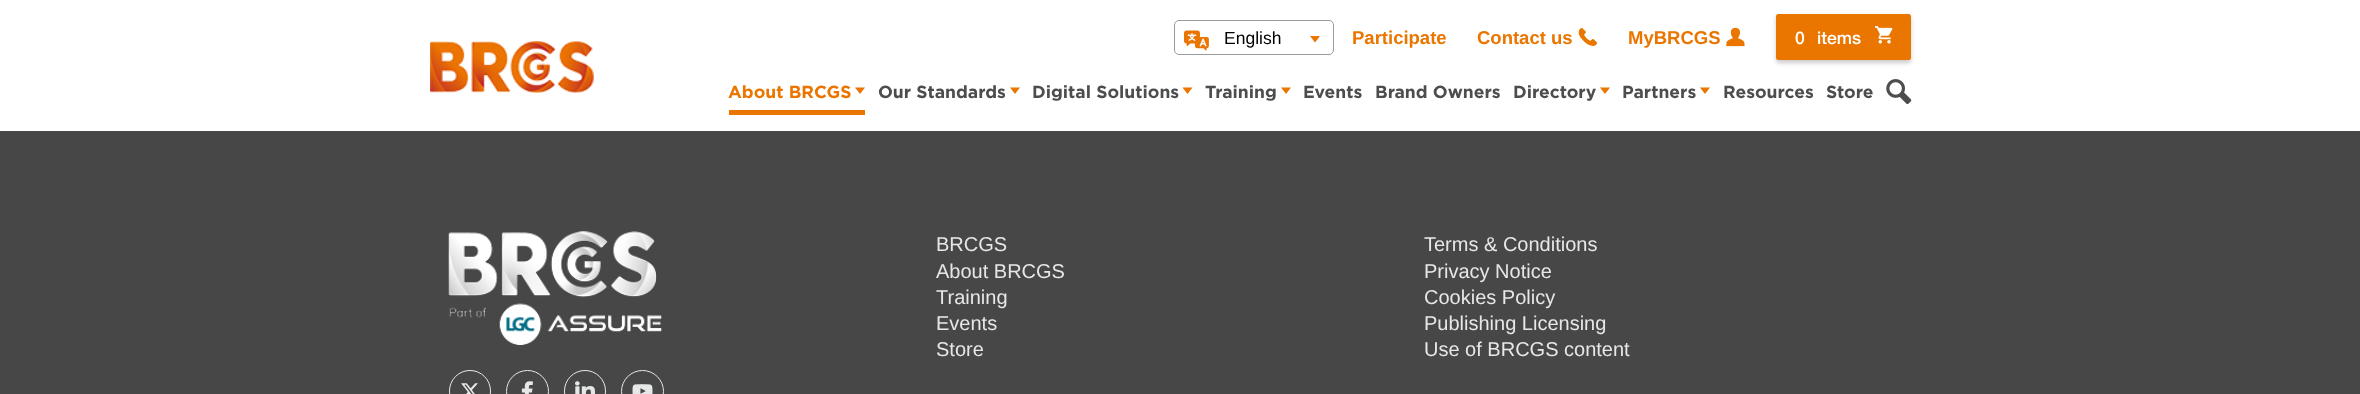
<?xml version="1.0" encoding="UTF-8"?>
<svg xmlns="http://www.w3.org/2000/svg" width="2360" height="394">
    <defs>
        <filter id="blur1" x="-50%" y="-200%" width="200%" height="500%"><feGaussianBlur stdDeviation="2"/></filter>
    </defs>
    <rect width="100%" height="100%" fill="#FFFFFF"/>
    <image x="430" y="41" width="164" height="52" href="img_01.png"/>
    <rect x="1174.5" y="20.5" width="159" height="34" rx="4.5" fill="none" stroke="#9B9B9B"/>
    <image x="1184" y="30" width="25" height="21" href="img_02.png"/>
    <text x="1224" y="44" font-family="Liberation Sans" font-size="17.5" fill="#000000">English</text>
    <path d="M 1310 36 H 1320 L 1315 42.5 Z" fill="#EA7500"/>
    <text x="1352" y="44" font-family="Liberation Sans" font-size="18.5" font-weight="700" fill="#EA7600">Participate</text>
    <text x="1477" y="44" font-family="Liberation Sans" font-size="18.5" font-weight="700" fill="#EA7600">Contact us</text>
    <image x="1578" y="28" width="20" height="18" href="img_03.png"/>
    <text x="1628" y="44" font-family="Liberation Sans" font-size="18.5" font-weight="700" fill="#EA7600">MyBRCGS</text>
    <image x="1726" y="27" width="19" height="20" href="img_04.png"/>
    <rect x="1776" y="16" width="135" height="47" rx="2.5" fill="#000000" fill-opacity="0.2" filter="url(#blur1)"/>
    <rect x="1776" y="14" width="135" height="46" rx="2.5" fill="#EA7600"/>
    <text x="1795" y="44" font-family="Helvetica Neue" font-size="17.5" font-weight="500" fill="#FFFFFF">0</text>
    <text x="1817" y="44" font-family="Helvetica Neue" font-size="17.5" font-weight="500" fill="#FFFFFF">items</text>
    <image x="1875" y="26" width="18" height="18" href="img_05.png"/>
    <rect x="729" y="110" width="136" height="5" fill="#EA7600"/>
    <text x="728" y="98" font-family="Gotham" font-size="17.5" font-weight="700" fill="#EA7600">About BRCGS</text>
    <path d="M 855 87.5 H 865 L 860 94 Z" fill="#EA7500"/>
    <text x="878" y="98" font-family="Gotham" font-size="17.5" font-weight="700" fill="#4D4D4F">Our Standards</text>
    <path d="M 1010 87.5 H 1020 L 1015 94 Z" fill="#EA7500"/>
    <text x="1032" y="98" font-family="Gotham" font-size="17.5" font-weight="700" fill="#4D4D4F">Digital Solutions</text>
    <path d="M 1182.5 87.5 H 1192.5 L 1187.5 94 Z" fill="#EA7500"/>
    <text x="1205" y="98" font-family="Gotham" font-size="17.5" font-weight="700" fill="#4D4D4F">Training</text>
    <path d="M 1281 87.5 H 1291 L 1286 94 Z" fill="#EA7500"/>
    <text x="1303" y="98" font-family="Gotham" font-size="17.5" font-weight="700" fill="#4D4D4F">Events</text>
    <text x="1375" y="98" font-family="Gotham" font-size="17.5" font-weight="700" fill="#4D4D4F">Brand Owners</text>
    <text x="1513" y="98" font-family="Gotham" font-size="17.5" font-weight="700" fill="#4D4D4F">Directory</text>
    <path d="M 1600 87.5 H 1610 L 1605 94 Z" fill="#EA7500"/>
    <text x="1622" y="98" font-family="Gotham" font-size="17.5" font-weight="700" fill="#4D4D4F">Partners</text>
    <path d="M 1700 87.5 H 1710 L 1705 94 Z" fill="#EA7500"/>
    <text x="1723" y="98" font-family="Gotham" font-size="17.5" font-weight="700" fill="#4D4D4F">Resources</text>
    <text x="1826" y="98" font-family="Gotham" font-size="17.5" font-weight="700" fill="#4D4D4F">Store</text>
    <image x="1886" y="79" width="26" height="25" href="img_06.png"/>
    <rect x="0" y="131" width="2360" height="263" fill="#474747"/>
    <image x="448" y="231" width="214" height="114" href="img_07.png"/>
    <rect x="449.5" y="370.5" width="41" height="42" rx="20.5" fill="none" stroke="#E6E7E8"/>
    <image x="461" y="383" width="17" height="11" href="img_08.png"/>
    <circle cx="527.5" cy="391.5" r="21" fill="none" stroke="#E6E7E8"/>
    <image x="521" y="381" width="13" height="13" href="img_09.png"/>
    <rect x="564.5" y="370.5" width="41" height="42" rx="20.5" fill="none" stroke="#E6E7E8"/>
    <image x="575" y="381" width="20" height="13" href="img_10.png"/>
    <circle cx="642.5" cy="391.5" r="21" fill="none" stroke="#E6E7E8"/>
    <image x="632" y="384" width="21" height="10" href="img_11.png"/>
    <text font-family="Liberation Sans" font-size="20" fill="#E6E7E8">
        <tspan x="936" y="251">BRCGS</tspan>
        <tspan x="936" y="278">About BRCGS</tspan>
        <tspan x="936" y="304">Training</tspan>
        <tspan x="936" y="330">Events</tspan>
        <tspan x="936" y="356">Store</tspan>
    </text>
    <text font-family="Liberation Sans" font-size="20" fill="#E6E7E8">
        <tspan x="1424" y="251">Terms &amp; Conditions</tspan>
        <tspan x="1424" y="278">Privacy Notice</tspan>
        <tspan x="1424" y="304">Cookies Policy</tspan>
        <tspan x="1424" y="330">Publishing Licensing</tspan>
        <tspan x="1424" y="356">Use of BRCGS content</tspan>
    </text>
</svg>
